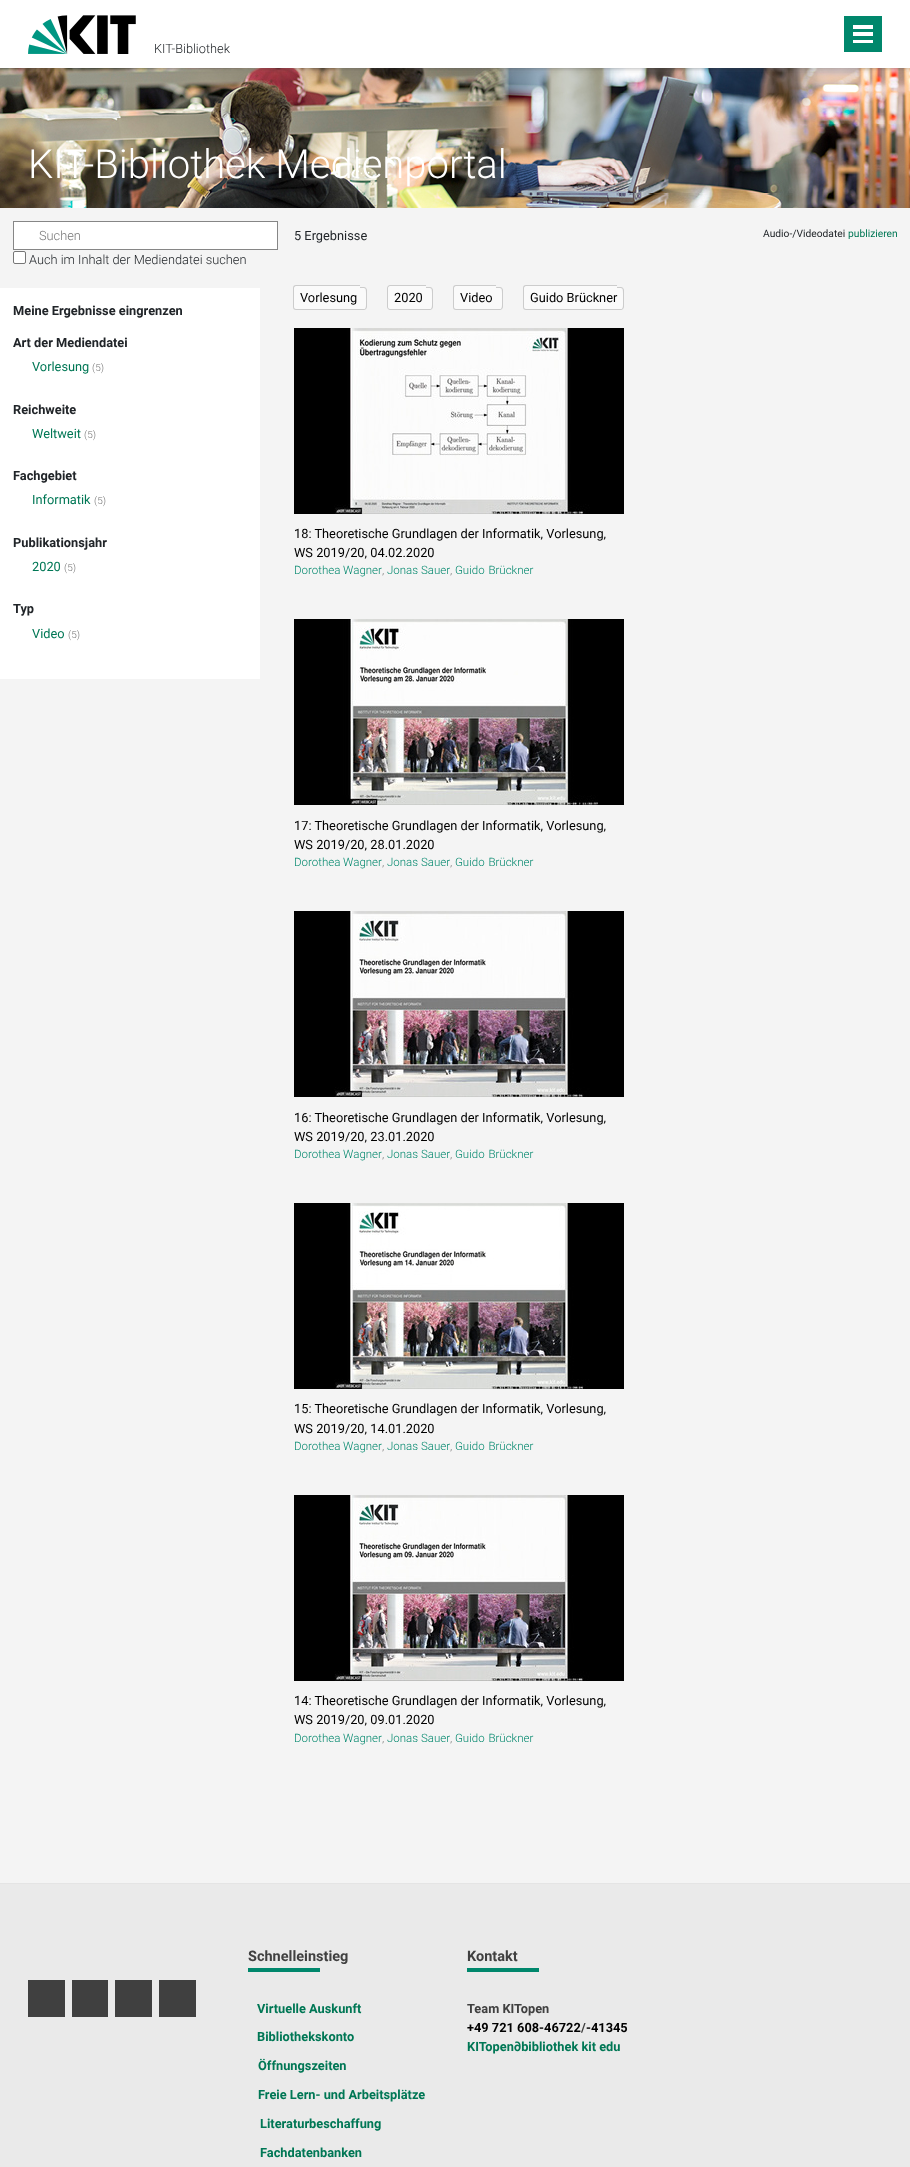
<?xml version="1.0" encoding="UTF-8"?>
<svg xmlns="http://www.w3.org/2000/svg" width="910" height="2167">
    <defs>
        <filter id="blur1" x="-50%" y="-200%" width="200%" height="500%"><feGaussianBlur stdDeviation="2.5"/></filter>
    </defs>
    <rect width="100%" height="100%" fill="#F4F4F4"/>
    <image x="0" y="68" width="910" height="140" href="img_02.png"/>
    <rect x="0" y="0" width="910" height="68" fill="#404040" fill-opacity="0.5" filter="url(#blur1)"/>
    <rect x="0" y="0" width="910" height="68" fill="#FFFFFF"/>
    <image x="28" y="15" width="108" height="39" href="img_01.png"/>
    <text x="154" y="53" font-family="Roboto" font-size="12.8" font-weight="300" fill="#212529">KIT-Bibliothek</text>
    <rect x="844" y="16" width="38" height="36" fill="#00876C"/>
    <rect x="853" y="40" width="20" height="3" fill="#FFFFFF"/>
    <rect x="853" y="32" width="20" height="4" fill="#FFFFFF"/>
    <rect x="853" y="25" width="20" height="4" fill="#FFFFFF"/>
    <text x="28" y="178" font-family="Roboto" font-size="40" font-weight="300" fill="#FFFFFF">KIT-Bibliothek Medienportal</text>
    <rect x="13.5" y="221.5" width="264" height="28" fill="#FFFFFF" stroke="#868686"/>
    <text x="39" y="240" font-family="Roboto" font-size="12.8" font-weight="300" fill="#777777">Suchen</text>
    <text x="294" y="240" font-family="Roboto" font-size="12.8" fill="#212529">5 Ergebnisse</text>
    <rect x="13.5" y="251.5" width="12" height="12" rx="1.5" fill="#FFFFFF" stroke="#767676"/>
    <text x="29" y="264" font-family="Roboto" font-size="12.8" font-weight="300" fill="#212529">Auch im Inhalt der Mediendatei suchen</text>
    <text x="763" y="237" font-family="Roboto" font-size="10.25" fill="#212529">Audio-/Videodatei</text>
    <text x="848" y="237" font-family="Roboto" font-size="10.25" fill="#007755">publizieren</text>
    <rect x="0" y="288" width="260" height="391" fill="#FFFFFF"/>
    <text x="13" y="315" font-family="Roboto" font-size="12.8" font-weight="700" fill="#212529">Meine Ergebnisse eingrenzen</text>
    <text x="13" y="347" font-family="Roboto" font-size="12.8" font-weight="700" fill="#212529">Art der Mediendatei</text>
    <text x="32" y="371" font-family="Roboto" font-size="12.8" fill="#007755">Vorlesung</text>
    <text x="92" y="371" font-family="Roboto" font-size="10" font-weight="300" fill="#777777">(5)</text>
    <text x="13" y="414" font-family="Roboto" font-size="12.8" font-weight="700" fill="#212529">Reichweite</text>
    <text x="32" y="438" font-family="Roboto" font-size="12.8" fill="#007755">Weltweit</text>
    <text x="84" y="438" font-family="Roboto" font-size="10" font-weight="300" fill="#777777">(5)</text>
    <text x="13" y="480" font-family="Roboto" font-size="12.8" font-weight="700" fill="#212529">Fachgebiet</text>
    <text x="32" y="504" font-family="Roboto" font-size="12.8" fill="#007755">Informatik</text>
    <text x="94" y="504" font-family="Roboto" font-size="10" font-weight="300" fill="#777777">(5)</text>
    <text x="13" y="547" font-family="Roboto" font-size="12.8" font-weight="700" fill="#212529">Publikationsjahr</text>
    <text x="32" y="571" font-family="Roboto" font-size="12.8" fill="#007755">2020</text>
    <text x="64" y="571" font-family="Roboto" font-size="10" font-weight="300" fill="#777777">(5)</text>
    <text x="13" y="613" font-family="Roboto" font-size="12.8" font-weight="700" fill="#212529">Typ</text>
    <text x="32" y="638" font-family="Roboto" font-size="12.8" fill="#007755">Video</text>
    <text x="68" y="638" font-family="Roboto" font-size="10" font-weight="300" fill="#777777">(5)</text>
    <path d="M 296 285 H 360 V 310 H 296 C 294.5 310 293 308.5 293 307 V 288 C 293 286.5 294.5 285 296 285 Z" fill="#FAFAFA"/>
    <path d="M 296 285 H 360 V 310 H 296 C 294 310 293 309 293 307 V 288 C 293 286 294 285 296 285 Z M 296 286 H 360 V 309 H 296 C 295 309 294 308 294 307 V 288 C 294 287 295 286 296 286 Z" fill="#CCCCCC" fill-rule="evenodd"/>
    <text x="300" y="302" font-family="Roboto" font-size="12.8" fill="#000000">Vorlesung</text>
    <path d="M 360 287 H 364 C 365.5 287 367 288.5 367 290 V 307 C 367 308.5 365.5 310 364 310 H 360 Z" fill="#FAFAFA"/>
    <path d="M 360 287 H 364 C 365.5 287 367 288.5 367 290 V 307 C 367 308.5 365.5 310 364 310 H 360 Z M 360 288 C 365 288 366 287 366 293 V 304 C 366 310 365 309 360 309 Z" fill="#CCCCCC" fill-rule="evenodd"/>
    <path d="M 390 285 H 426 V 310 H 390 C 388.5 310 387 308.5 387 307 V 288 C 387 286.5 388.5 285 390 285 Z" fill="#FAFAFA"/>
    <path d="M 390 285 H 426 V 310 H 390 C 388.5 310 387 308.5 387 307 V 288 C 387 286.5 388.5 285 390 285 Z M 390 286 H 426 V 309 H 390 C 389 309 388 308 388 307 V 288 C 388 287 389 286 390 286 Z" fill="#CCCCCC" fill-rule="evenodd"/>
    <text x="394" y="302" font-family="Roboto" font-size="12.8" fill="#000000">2020</text>
    <path d="M 426 287 H 430 C 431.5 287 433 288.5 433 290 V 307 C 433 308.5 431.5 310 430 310 H 426 Z" fill="#FAFAFA"/>
    <path d="M 426 287 H 430 C 431.5 287 433 288.5 433 290 V 307 C 433 308.5 431.5 310 430 310 H 426 Z M 426 288 C 431 288 432 287 432 293 V 304 C 432 310 431 309 426 309 Z" fill="#CCCCCC" fill-rule="evenodd"/>
    <path d="M 456 285 H 496 V 310 H 456 C 454.5 310 453 308.5 453 307 V 288 C 453 286.5 454.5 285 456 285 Z" fill="#FAFAFA"/>
    <path d="M 456 285 H 496 V 310 H 456 C 454 310 453 309 453 307 V 288 C 453 286 454 285 456 285 Z M 456 286 H 496 V 309 H 456 C 455 309 454 308 454 307 V 288 C 454 287 455 286 456 286 Z" fill="#CCCCCC" fill-rule="evenodd"/>
    <text x="460" y="302" font-family="Roboto" font-size="12.8" fill="#000000">Video</text>
    <path d="M 496 287 H 500 C 501.5 287 503 288.5 503 290 V 307 C 503 308.5 501.5 310 500 310 H 496 Z" fill="#FAFAFA"/>
    <path d="M 496 287 H 500 C 501.5 287 503 288.5 503 290 V 307 C 503 308.5 501.5 310 500 310 H 496 Z M 496 288 C 501 288 502 287 502 293 V 304 C 502 310 501 309 496 309 Z" fill="#CCCCCC" fill-rule="evenodd"/>
    <path d="M 526 285 H 617 V 310 H 526 C 524.5 310 523 308.5 523 307 V 288 C 523 286.5 524.5 285 526 285 Z" fill="#FAFAFA"/>
    <path d="M 526 285 H 617 V 310 H 526 C 524 310 523 309 523 307 V 288 C 523 286 524 285 526 285 Z M 526 286 H 617 V 309 H 526 C 525 309 524 308 524 307 V 288 C 524 287 525 286 526 286 Z" fill="#CCCCCC" fill-rule="evenodd"/>
    <path d="M 617 287 H 621 C 622.5 287 624 288.5 624 290 V 307 C 624 308.5 622.5 310 621 310 H 617 Z" fill="#FAFAFA"/>
    <path d="M 617 287 H 621 C 622.5 287 624 288.5 624 290 V 307 C 624 308.5 622.5 310 621 310 H 617 Z M 617 288 C 622 288 623 287 623 293 V 304 C 623 310 622 309 617 309 Z" fill="#CCCCCC" fill-rule="evenodd"/>
    <text x="530" y="302" font-family="Roboto" font-size="12.8" fill="#000000">Guido Brückner</text>
    <image x="294" y="328" width="330" height="186" href="img_03.png"/>
    <text font-family="Roboto" font-size="12.8" fill="#000000">
        <tspan x="294" y="538">18: Theoretische Grundlagen der Informatik, Vorlesung,</tspan>
        <tspan x="294" y="557">WS 2019/20, 04.02.2020</tspan>
    </text>
    <text x="294" y="574" font-family="Roboto" font-size="11.5" font-weight="300" fill="#00876C">Dorothea Wagner</text>
    <text x="382" y="574" font-family="Roboto" font-size="11.5" font-weight="300" fill="#777777">,</text>
    <text x="387" y="574" font-family="Roboto" font-size="11.5" font-weight="300" fill="#00876C">Jonas Sauer</text>
    <text x="455" y="574" word-spacing="1" font-family="Roboto" font-size="11.5" font-weight="300" fill="#00876C">Guido Brückner</text>
    <text x="450" y="574" font-family="Roboto" font-size="11.5" font-weight="300" fill="#777777">,</text>
    <image x="294" y="619" width="330" height="186" href="img_04.png"/>
    <text font-family="Roboto" font-size="12.8" fill="#000000">
        <tspan x="294" y="830">17: Theoretische Grundlagen der Informatik, Vorlesung,</tspan>
        <tspan x="294" y="849">WS 2019/20, 28.01.2020</tspan>
    </text>
    <text x="294" y="866" font-family="Roboto" font-size="11.5" font-weight="300" fill="#00876C">Dorothea Wagner</text>
    <text x="382" y="866" font-family="Roboto" font-size="11.5" font-weight="300" fill="#777777">,</text>
    <text x="387" y="866" font-family="Roboto" font-size="11.5" font-weight="300" fill="#00876C">Jonas Sauer</text>
    <text x="455" y="866" word-spacing="1" font-family="Roboto" font-size="11.5" font-weight="300" fill="#00876C">Guido Brückner</text>
    <text x="450" y="866" font-family="Roboto" font-size="11.5" font-weight="300" fill="#777777">,</text>
    <image x="294" y="911" width="330" height="186" href="img_05.png"/>
    <text font-family="Roboto" font-size="12.8" fill="#000000">
        <tspan x="294" y="1122">16: Theoretische Grundlagen der Informatik, Vorlesung,</tspan>
        <tspan x="294" y="1141">WS 2019/20, 23.01.2020</tspan>
    </text>
    <text x="294" y="1158" font-family="Roboto" font-size="11.5" font-weight="300" fill="#00876C">Dorothea Wagner</text>
    <text x="382" y="1158" font-family="Roboto" font-size="11.5" font-weight="300" fill="#777777">,</text>
    <text x="387" y="1158" font-family="Roboto" font-size="11.5" font-weight="300" fill="#00876C">Jonas Sauer</text>
    <text x="455" y="1158" word-spacing="1" font-family="Roboto" font-size="11.5" font-weight="300" fill="#00876C">Guido Brückner</text>
    <text x="450" y="1158" font-family="Roboto" font-size="11.5" font-weight="300" fill="#777777">,</text>
    <image x="294" y="1203" width="330" height="186" href="img_06.png"/>
    <text font-family="Roboto" font-size="12.8" fill="#000000">
        <tspan x="294" y="1413">15: Theoretische Grundlagen der Informatik, Vorlesung,</tspan>
        <tspan x="294" y="1433">WS 2019/20, 14.01.2020</tspan>
    </text>
    <text x="294" y="1450" font-family="Roboto" font-size="11.5" font-weight="300" fill="#00876C">Dorothea Wagner</text>
    <text x="382" y="1450" font-family="Roboto" font-size="11.5" font-weight="300" fill="#777777">,</text>
    <text x="387" y="1450" font-family="Roboto" font-size="11.5" font-weight="300" fill="#00876C">Jonas Sauer</text>
    <text x="455" y="1450" word-spacing="1" font-family="Roboto" font-size="11.5" font-weight="300" fill="#00876C">Guido Brückner</text>
    <text x="450" y="1450" font-family="Roboto" font-size="11.5" font-weight="300" fill="#777777">,</text>
    <image x="294" y="1495" width="330" height="186" href="img_07.png"/>
    <text font-family="Roboto" font-size="12.8" fill="#000000">
        <tspan x="294" y="1705">14: Theoretische Grundlagen der Informatik, Vorlesung,</tspan>
        <tspan x="294" y="1724">WS 2019/20, 09.01.2020</tspan>
    </text>
    <text x="294" y="1742" font-family="Roboto" font-size="11.5" font-weight="300" fill="#00876C">Dorothea Wagner</text>
    <text x="382" y="1742" font-family="Roboto" font-size="11.5" font-weight="300" fill="#777777">,</text>
    <text x="387" y="1742" font-family="Roboto" font-size="11.5" font-weight="300" fill="#00876C">Jonas Sauer</text>
    <text x="455" y="1742" word-spacing="1" font-family="Roboto" font-size="11.5" font-weight="300" fill="#00876C">Guido Brückner</text>
    <text x="450" y="1742" font-family="Roboto" font-size="11.5" font-weight="300" fill="#777777">,</text>
    <rect x="0" y="1884" width="910" height="283" fill="#EAEAEA"/>
    <rect x="0" y="1883" width="910" height="1" fill="#E4E4E4"/>
    <rect x="28" y="1980" width="37" height="37" fill="#404040"/>
    <rect x="72" y="1980" width="36" height="37" fill="#404040"/>
    <rect x="115" y="1980" width="37" height="37" fill="#404040"/>
    <rect x="159" y="1980" width="37" height="37" fill="#404040"/>
    <text x="248" y="1961" font-family="Roboto" font-size="14.5" font-weight="700" fill="#404040">Schnelleinstieg</text>
    <rect x="248" y="1968" width="72" height="4" fill="#00876C"/>
    <text x="257" y="2013" font-family="Roboto" font-size="12.8" font-weight="700" fill="#007755">Virtuelle Auskunft</text>
    <text x="257" y="2041" font-family="Roboto" font-size="12.8" font-weight="700" fill="#007755">Bibliothekskonto</text>
    <text x="258" y="2070" font-family="Roboto" font-size="12.8" font-weight="700" fill="#007755">Öffnungszeiten</text>
    <text x="258" y="2099" font-family="Roboto" font-size="12.8" font-weight="700" fill="#007755">Freie Lern- und Arbeitsplätze</text>
    <text x="260" y="2128" font-family="Roboto" font-size="12.8" font-weight="700" fill="#007755">Literaturbeschaffung</text>
    <text x="260" y="2157" font-family="Roboto" font-size="12.8" font-weight="700" fill="#007755">Fachdatenbanken</text>
    <text x="467" y="1961" font-family="Roboto" font-size="14.5" font-weight="700" fill="#404040">Kontakt</text>
    <rect x="467" y="1968" width="72" height="4" fill="#00876C"/>
    <text x="467" y="2013" font-family="Roboto" font-size="12.8" font-weight="700" fill="#404040">Team KITopen</text>
    <text x="467" y="2032" font-family="Roboto" font-size="12.8" font-weight="700" fill="#000000">+49 721 608-46722</text>
    <text x="581" y="2032" font-family="Roboto" font-size="12.8" font-weight="700" fill="#404040">/</text>
    <text x="586" y="2032" font-family="Roboto" font-size="12.8" font-weight="700" fill="#000000">-41345</text>
    <text x="467" y="2051" font-family="Roboto" font-size="12.8" font-weight="700" fill="#007755">KITopen∂bibliothek kit edu</text>
</svg>
